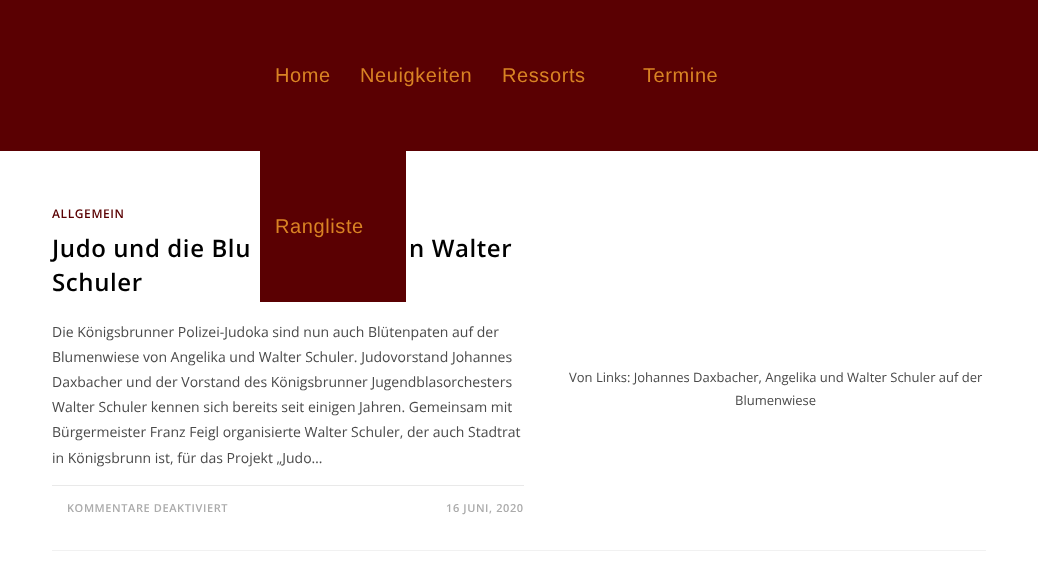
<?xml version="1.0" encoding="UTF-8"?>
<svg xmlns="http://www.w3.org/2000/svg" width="1038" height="584">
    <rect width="100%" height="100%" fill="#FFFFFF"/>
    <rect x="0" y="0" width="1038" height="151" fill="#5A0002"/>
    <text x="275" y="82" font-family="Liberation Sans" font-size="20" letter-spacing="0.6" fill="#D98324">Home</text>
    <text x="360" y="82" font-family="Liberation Sans" font-size="20" letter-spacing="0.6" fill="#D98324">Neuigkeiten</text>
    <text x="502" y="82" font-family="Liberation Sans" font-size="20" letter-spacing="0.6" fill="#D98324">Ressorts</text>
    <text x="643" y="82" font-family="Liberation Sans" font-size="20" letter-spacing="0.6" fill="#D98324">Termine</text>
    <rect x="260" y="151" width="146" height="151" fill="#5A0002"/>
    <text x="275" y="233" font-family="Liberation Sans" font-size="20" letter-spacing="0.6" fill="#D98324">Rangliste</text>
    <rect x="52" y="550" width="934" height="1" fill="#F1F1F1"/>
    <text x="52" y="218" font-family="Open Sans" font-size="12" font-weight="600" letter-spacing="0.6" fill="#5A0002">ALLGEMEIN</text>
    <text x="52" y="257" font-family="Open Sans" font-size="24" font-weight="600" letter-spacing="0.6" fill="#000000">Judo und die Blu</text>
    <text x="409" y="257" font-family="Open Sans" font-size="24" font-weight="600" letter-spacing="0.6" fill="#000000">n Walter</text>
    <text x="52" y="291" font-family="Open Sans" font-size="24" font-weight="600" letter-spacing="0.6" fill="#000000">Schuler</text>
    <text font-family="Open Sans" font-size="14" fill="#4A4A4A">
        <tspan x="52" y="337">Die Königsbrunner Polizei-Judoka sind nun auch Blütenpaten auf der</tspan>
        <tspan x="52" y="362">Blumenwiese von Angelika und Walter Schuler. Judovorstand Johannes</tspan>
        <tspan x="52" y="387">Daxbacher und der Vorstand des Königsbrunner Jugendblasorchesters</tspan>
        <tspan x="52" y="412">Walter Schuler kennen sich bereits seit einigen Jahren. Gemeinsam mit</tspan>
        <tspan x="52" y="437">Bürgermeister Franz Feigl organisierte Walter Schuler, der auch Stadtrat</tspan>
        <tspan x="52" y="463">in Königsbrunn ist, für das Projekt „Judo…</tspan>
    </text>
    <rect x="52" y="485" width="472" height="1" fill="#E9E9E9"/>
    <text x="67" y="512" font-family="Open Sans" font-size="11" font-weight="600" letter-spacing="0.6" fill="#ABABAB">KOMMENTARE DEAKTIVIERT</text>
    <text x="446" y="512" font-family="Open Sans" font-size="11" font-weight="600" letter-spacing="0.6" fill="#ABABAB">16 JUNI, 2020</text>
    <text x="569" y="382" font-family="Open Sans" font-size="13" fill="#4A4A4A">Von Links: Johannes Daxbacher, Angelika und Walter Schuler auf der</text>
    <text x="735" y="405" font-family="Open Sans" font-size="13" fill="#4A4A4A">Blumenwiese</text>
</svg>
